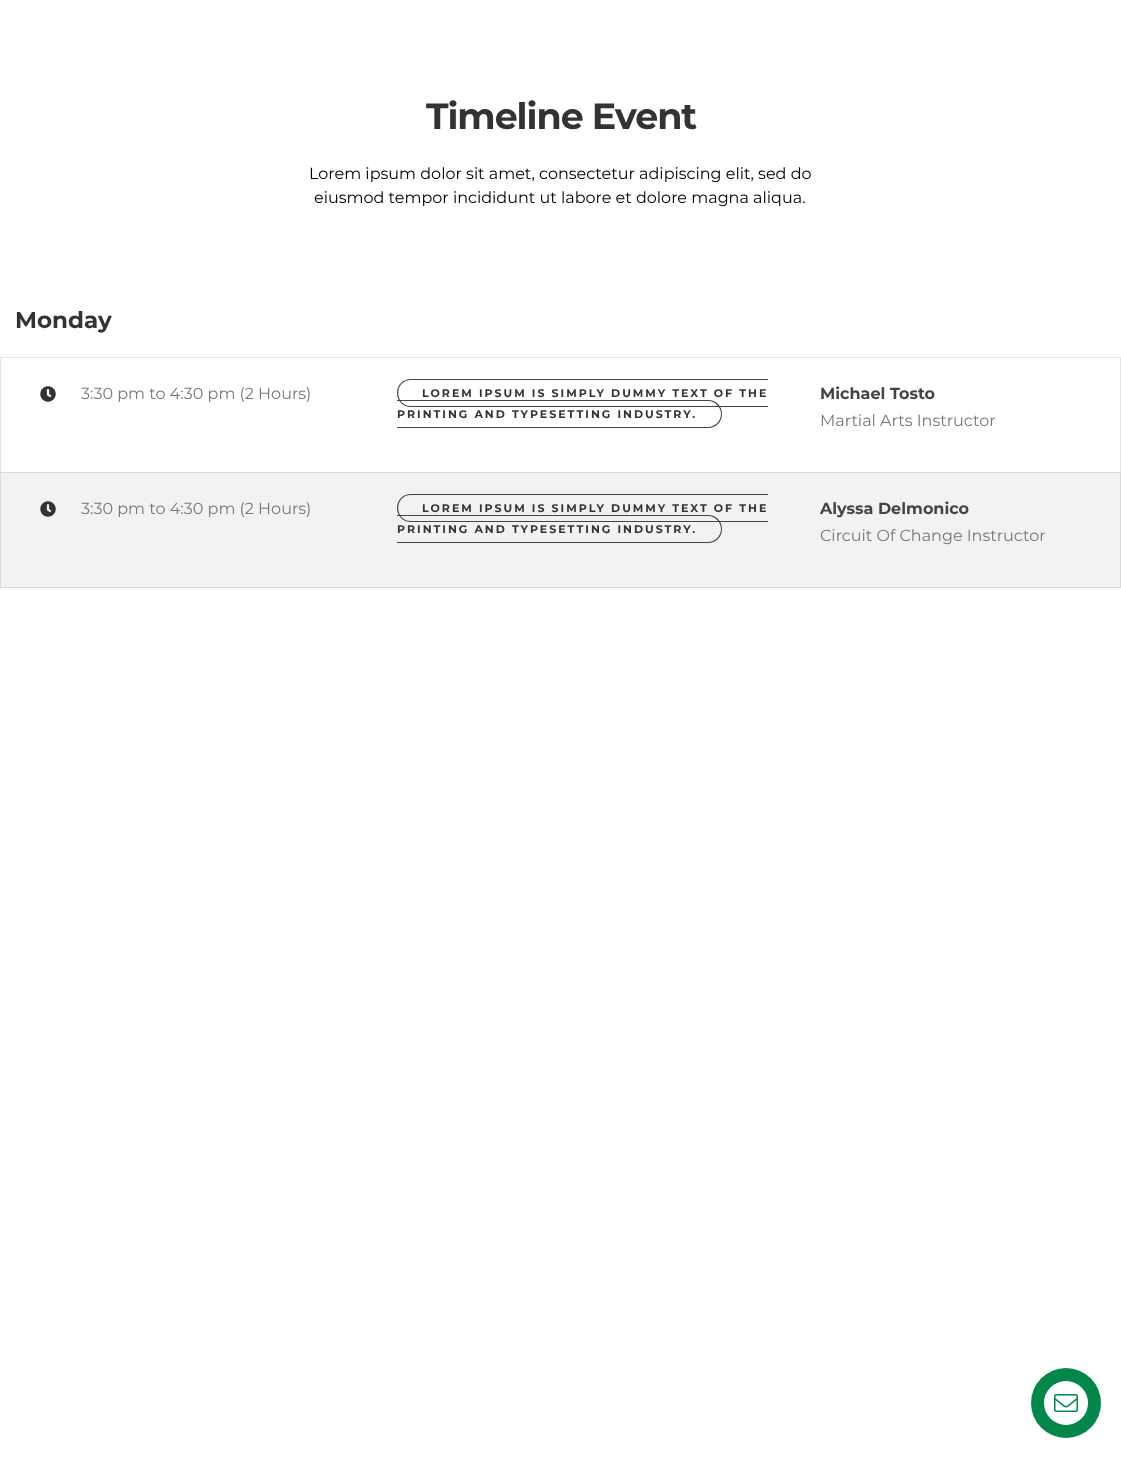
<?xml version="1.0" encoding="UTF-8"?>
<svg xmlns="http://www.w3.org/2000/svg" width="1121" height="1458">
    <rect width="100%" height="100%" fill="#FFFFFF"/>
    <text x="426" y="129" font-family="Montserrat" font-size="36.5" font-weight="700" letter-spacing="-1.1" fill="#333333">Timeline Event</text>
    <text x="309" y="179" font-family="Montserrat" font-size="16" fill="#000000">Lorem ipsum dolor sit amet, consectetur adipiscing elit, sed do</text>
    <text x="314" y="203" font-family="Montserrat" font-size="16" fill="#000000">eiusmod tempor incididunt ut labore et dolore magna aliqua.</text>
    <text x="15" y="328" font-family="Montserrat" font-size="23" font-weight="700" fill="#333333">Monday</text>
    <rect x="0.5" y="357.5" width="1120" height="115" fill="none" stroke="#E6E6E6"/>
    <image x="40" y="386" width="16" height="16" href="img_01.png"/>
    <text x="81" y="399" font-family="Montserrat" font-size="16" fill="#787878">3:30 pm to 4:30 pm (2 Hours)</text>
    <path d="M 411 379 H 768 V 407 H 411 C 403 407 397 401 397 393 C 397 385 403 379 411 379 Z M 411 380 H 768 V 406 H 411 C 394 406 394 380 411 380 Z" fill="#444444" fill-rule="evenodd"/>
    <text x="422" y="397" font-family="Montserrat" font-size="11" font-weight="700" letter-spacing="2" fill="#333333">LOREM IPSUM IS SIMPLY DUMMY TEXT OF THE</text>
    <path d="M 397 400 H 708 C 716 400 722 406 722 414 C 722 422 716 428 708 428 H 397 Z M 397 401 H 708 C 715 401 721 407 721 414 C 721 421 715 427 708 427 H 397 Z" fill="#444444" fill-rule="evenodd"/>
    <text x="397" y="418" font-family="Montserrat" font-size="11" font-weight="700" letter-spacing="2" fill="#333333">PRINTING AND TYPESETTING INDUSTRY.</text>
    <text x="820" y="399" font-family="Montserrat" font-size="16" font-weight="700" fill="#444444">Michael Tosto</text>
    <text x="820" y="426" font-family="Montserrat" font-size="16" fill="#787878">Martial Arts Instructor</text>
    <rect x="0.5" y="472.5" width="1120" height="115" fill="#F2F2F4" stroke="#DADADC"/>
    <image x="40" y="501" width="16" height="16" href="img_02.png"/>
    <text x="81" y="514" font-family="Montserrat" font-size="16" fill="#787878">3:30 pm to 4:30 pm (2 Hours)</text>
    <path d="M 411 494 H 768 V 522 H 411 C 403 522 397 516 397 508 C 397 500 403 494 411 494 Z M 411 495 H 768 V 521 H 411 C 394 521 394 495 411 495 Z" fill="#444444" fill-rule="evenodd"/>
    <text x="422" y="512" font-family="Montserrat" font-size="11" font-weight="700" letter-spacing="2" fill="#333333">LOREM IPSUM IS SIMPLY DUMMY TEXT OF THE</text>
    <path d="M 397 515 H 708 C 716 515 722 521 722 529 C 722 537 716 543 708 543 H 397 Z M 397 516 H 708 C 715 516 721 522 721 529 C 721 536 715 542 708 542 H 397 Z" fill="#444444" fill-rule="evenodd"/>
    <text x="397" y="533" font-family="Montserrat" font-size="11" font-weight="700" letter-spacing="2" fill="#333333">PRINTING AND TYPESETTING INDUSTRY.</text>
    <text x="820" y="514" font-family="Montserrat" font-size="16" font-weight="700" fill="#444444">Alyssa Delmonico</text>
    <text x="820" y="541" font-family="Montserrat" font-size="16" fill="#787878">Circuit Of Change Instructor</text>
    <circle cx="1066" cy="1403" r="35" fill="#008749"/>
    <circle cx="1066" cy="1403" r="22" fill="#FFFFFF"/>
    <image x="1054" y="1394" width="24" height="18" href="img_03.png"/>
</svg>
